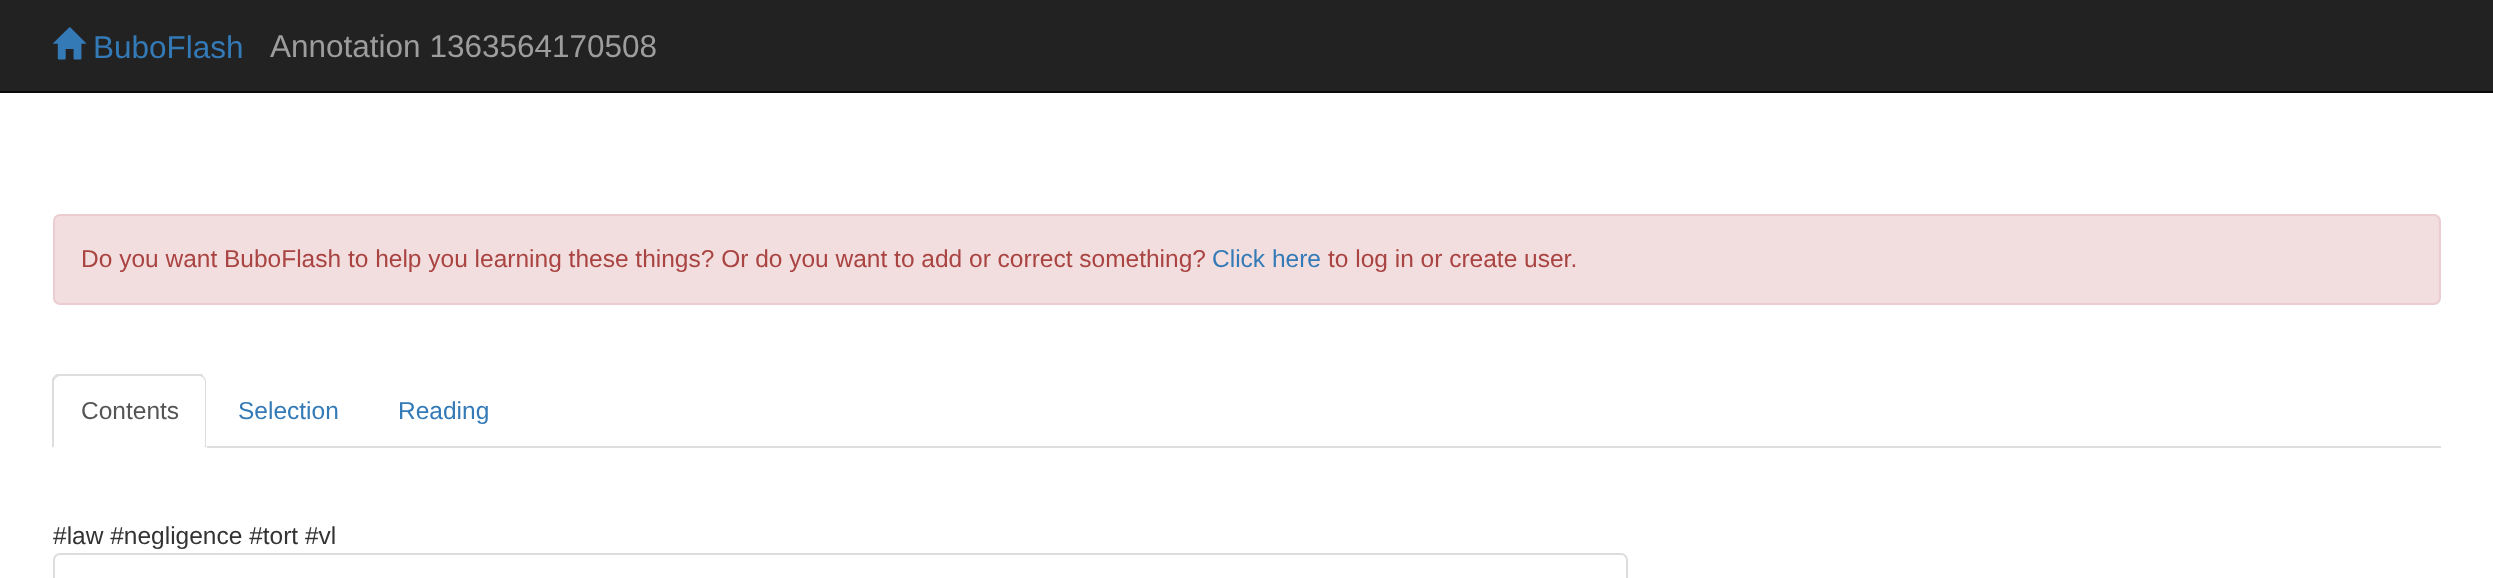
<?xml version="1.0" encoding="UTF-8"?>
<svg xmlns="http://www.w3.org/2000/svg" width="2493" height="578">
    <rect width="100%" height="100%" fill="#FFFFFF"/>
    <rect x="0" y="0" width="2493" height="91" fill="#222222"/>
    <rect x="0" y="91" width="2493" height="2" fill="#080808"/>
    <image x="53" y="27" width="34" height="33" href="img_01.png"/>
    <text x="93" y="58" font-family="Liberation Sans" font-size="31.5" fill="#337AB7">BuboFlash</text>
    <text x="270" y="57" font-family="Liberation Sans" font-size="31.5" fill="#9D9D9D">Annotation 1363564170508</text>
    <rect x="54" y="215" width="2386" height="89" rx="6" fill="#F2DEDE" stroke="#EBCCD1" stroke-width="2"/>
    <text x="81" y="267" font-family="Liberation Sans" font-size="24.5" fill="#A94442">Do you want BuboFlash to help you learning these things? Or do you want to add or correct something?</text>
    <text x="1212" y="267" font-family="Liberation Sans" font-size="24.5" fill="#337AB7">Click here</text>
    <text x="1328" y="267" font-family="Liberation Sans" font-size="24.5" fill="#A94442">to log in or create user.</text>
    <rect x="207" y="446" width="2234" height="2" fill="#DDDDDD"/>
    <path d="M 60 376 C 58 376 57 377 56 378 L 54 376 L 57 374 H 202 L 204 377 L 203 378 C 202 377 201 376 200 376 Z" fill="#DDDDDD"/>
    <path d="M 204 377 C 205 378 206 380 206 382 V 448 L 204 446 H 205 V 382 C 205 380 204 379 203 378 Z" fill="#DDDDDD"/>
    <path d="M 52 448 V 379 L 54 376 L 56 378 C 55 379 54 380 54 382 V 446 Z" fill="#DDDDDD"/>
    <text x="81" y="419" font-family="Liberation Sans" font-size="24.5" fill="#555555">Contents</text>
    <text x="238" y="419" font-family="Liberation Sans" font-size="24.5" fill="#337AB7">Selection</text>
    <text x="398" y="419" font-family="Liberation Sans" font-size="24.5" fill="#337AB7">Reading</text>
    <text x="53" y="544" font-family="Liberation Sans" font-size="24.5" fill="#333333">#law #negligence #tort #vl</text>
    <rect x="54" y="554" width="1573" height="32" rx="6" fill="none" stroke="#DDDDDD" stroke-width="2"/>
</svg>
